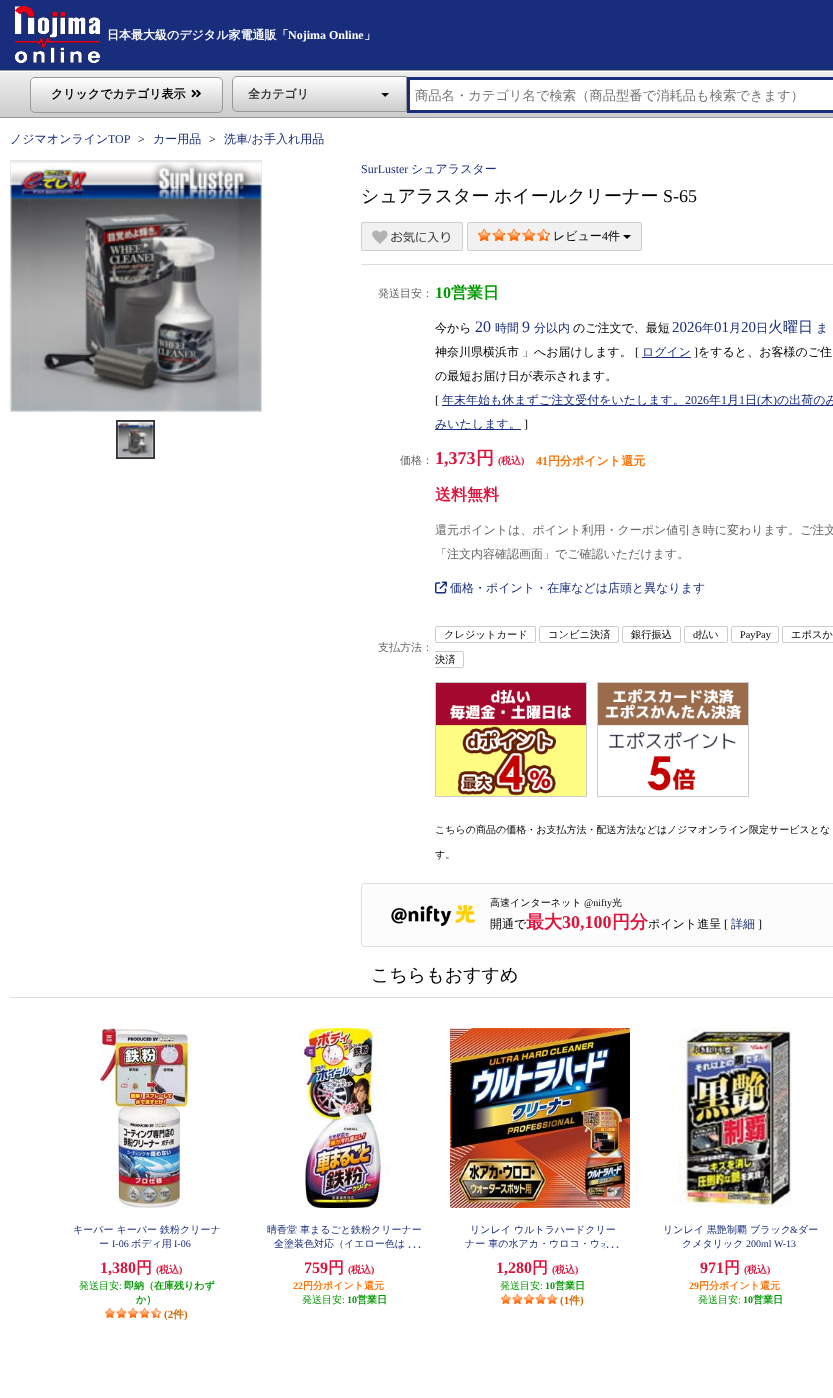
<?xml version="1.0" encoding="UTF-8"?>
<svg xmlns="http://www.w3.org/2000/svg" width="833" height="1398">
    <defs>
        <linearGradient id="g1" gradientUnits="userSpaceOnUse" x1="0" y1="72" x2="0" y2="117"><stop offset="0" stop-color="#EEEEEE"/><stop offset="1" stop-color="#CCCCCC"/></linearGradient>
        <clipPath id="clip1"><rect x="30" y="77" width="193" height="36" rx="5"/></clipPath>
        <linearGradient id="g2" gradientUnits="userSpaceOnUse" x1="31" y1="78" x2="31" y2="112"><stop offset="0" stop-color="#FFFFFF"/><stop offset="1" stop-color="#CCCCCC"/></linearGradient>
        <clipPath id="clip2"><path d="M 237 76 H 407 V 112 H 237 C 234 112 232 110 232 107 V 81 C 232 78 234 76 237 76 Z"/></clipPath>
        <linearGradient id="g3" gradientUnits="userSpaceOnUse" x1="233" y1="77" x2="233" y2="111"><stop offset="0" stop-color="#FFFFFF"/><stop offset="1" stop-color="#CCCCCC"/></linearGradient>
    </defs>
    <rect width="100%" height="100%" fill="#FFFFFF"/>
    <rect x="0" y="0" width="833" height="70" fill="#182D7C"/>
    <image x="15" y="6" width="85" height="57" href="img_01.png"/>
    <text x="107" y="39" font-family="WenQuanYi Zen Hei" font-size="12" font-weight="700" fill="#FFFFFF">日本最大級のデジタル家電通販「</text>
    <text x="288" y="39" font-family="Liberation Serif" font-size="12" font-weight="700" fill="#FFFFFF">Nojima Online</text>
    <text x="364" y="39" font-family="WenQuanYi Zen Hei" font-size="12" font-weight="700" fill="#FFFFFF">」</text>
    <rect x="0" y="70" width="833" height="1" fill="#999999"/>
    <rect x="0" y="72" width="833" height="45" fill="url(#g1)"/>
    <rect x="0" y="117" width="833" height="1" fill="#999999"/>
    <g clip-path="url(#clip1)">
        <rect x="30" y="78" width="193" height="34" fill="url(#g2)"/>
    </g>
    <rect x="30.5" y="77.5" width="192" height="35" rx="4.5" fill="none" stroke="#999999"/>
    <text x="51" y="98" font-family="WenQuanYi Zen Hei" font-size="12" font-weight="700" fill="#000000">クリックでカテゴリ表示</text>
    <image x="191" y="89" width="10" height="9" href="img_02.png"/>
    <g clip-path="url(#clip2)">
        <rect x="232" y="77" width="174" height="34" fill="url(#g3)"/>
    </g>
    <path d="M 237 76.5 H 406.5 V 111.5 H 237 C 234.5 111.5 232.5 109.5 232.5 107 V 81 C 232.5 78.5 234.5 76.5 237 76.5 Z" fill="none" stroke="#999999"/>
    <image x="381" y="93" width="8" height="4" href="img_03.png"/>
    <text x="248" y="98" font-family="WenQuanYi Zen Hei" font-size="12" font-weight="700" fill="#333333">全カテゴリ</text>
    <rect x="408.5" y="78.5" width="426" height="33" fill="#FFFFFF" stroke="#182D7C" stroke-width="3"/>
    <text x="415" y="100" font-family="WenQuanYi Zen Hei" font-size="13.3" font-weight="500" fill="#757575">商品名・カテゴリ名で検索（商品型番で消耗品も検索できます）</text>
    <text x="10" y="143" font-family="WenQuanYi Zen Hei" font-size="12" font-weight="500" fill="#182D7C">ノジマオンライン</text>
    <text x="108" y="143" font-family="Liberation Serif" font-size="12" fill="#182D7C">TOP</text>
    <text x="153" y="143" font-family="WenQuanYi Zen Hei" font-size="12" font-weight="500" fill="#182D7C">カー用品</text>
    <text x="224" y="143" font-family="WenQuanYi Zen Hei" font-size="12" font-weight="500" fill="#182D7C">洗車 お手入れ用品</text>
    <text x="138" y="143" font-family="Liberation Serif" font-size="12" fill="#000000">&gt;</text>
    <text x="209" y="143" font-family="Liberation Serif" font-size="12" fill="#000000">&gt;</text>
    <text x="248" y="143" font-family="Liberation Serif" font-size="12" fill="#182D7C">/</text>
    <rect x="10.5" y="160.5" width="251" height="251" fill="none" stroke="#E8E8E6"/>
    <image x="10" y="160" width="252" height="252" href="img_04.png"/>
    <rect x="117" y="421" width="37" height="37" fill="none" stroke="#333333" stroke-width="2"/>
    <image x="117" y="421" width="37" height="37" href="img_05.png"/>
    <text x="361" y="173" font-family="Liberation Serif" font-size="12" fill="#182D7C">SurLuster</text>
    <text x="411" y="173" font-family="WenQuanYi Zen Hei" font-size="12" font-weight="500" fill="#182D7C">シュアラスター</text>
    <text x="361" y="202" word-spacing="-1" font-family="WenQuanYi Zen Hei" font-size="18" font-weight="500" fill="#000000">シュアラスター ホイールクリーナー</text>
    <text x="663" y="202" font-family="Liberation Serif" font-size="18" fill="#000000">S-65</text>
    <rect x="361" y="222" width="102" height="29" rx="2" fill="#F1F1F1"/>
    <image x="372" y="230" width="78" height="14" href="img_06.png"/>
    <rect x="361.5" y="222.5" width="101" height="28" rx="1.5" fill="none" stroke="#CECECE"/>
    <rect x="467.5" y="222.5" width="174" height="28" rx="1.5" fill="#F1F1F1" stroke="#CECECE"/>
    <image x="478" y="229" width="72" height="12" href="img_07.png"/>
    <text x="553" y="240" font-family="WenQuanYi Zen Hei" font-size="12" font-weight="500" fill="#000000">レビュー</text>
    <text x="602" y="240" font-family="Liberation Serif" font-size="12" fill="#000000">4</text>
    <text x="608" y="240" font-family="WenQuanYi Zen Hei" font-size="12" font-weight="500" fill="#000000">件</text>
    <path d="M 623 235 H 631 L 627 239 Z" fill="#000000"/>
    <rect x="361" y="264" width="472" height="1" fill="#DADFE3"/>
    <text x="378" y="297" font-family="WenQuanYi Zen Hei" font-size="11" font-weight="500" fill="#666666">発送目安：</text>
    <text x="435" y="298" font-family="Liberation Serif" font-size="16" font-weight="700" fill="#009900">10</text>
    <text x="451" y="298" font-family="WenQuanYi Zen Hei" font-size="16" font-weight="700" fill="#009900">営業日</text>
    <text x="435" y="332" font-family="WenQuanYi Zen Hei" font-size="12" font-weight="500" fill="#000000">今から</text>
    <text x="475" y="332" font-family="Liberation Serif" font-size="16" fill="#182D7C">20</text>
    <text x="495" y="332" font-family="WenQuanYi Zen Hei" font-size="12" font-weight="500" fill="#182D7C">時間</text>
    <text x="522" y="332" font-family="Liberation Serif" font-size="16" fill="#182D7C">9</text>
    <text x="534" y="332" font-family="WenQuanYi Zen Hei" font-size="12" font-weight="500" fill="#182D7C">分以内</text>
    <text x="573" y="332" font-family="WenQuanYi Zen Hei" font-size="12" font-weight="500" fill="#000000">のご注文で、最短</text>
    <text x="672" y="332" font-family="Liberation Serif" font-size="15" fill="#182D7C">2026</text>
    <text x="702" y="332" font-family="WenQuanYi Zen Hei" font-size="12" font-weight="500" fill="#182D7C">年</text>
    <text x="714" y="332" font-family="Liberation Serif" font-size="15" fill="#182D7C">01</text>
    <text x="729" y="332" font-family="WenQuanYi Zen Hei" font-size="12" font-weight="500" fill="#182D7C">月</text>
    <text x="741" y="332" font-family="Liberation Serif" font-size="15" fill="#182D7C">20</text>
    <text x="756" y="332" font-family="WenQuanYi Zen Hei" font-size="12" font-weight="500" fill="#182D7C">日</text>
    <text x="768" y="332" font-family="WenQuanYi Zen Hei" font-size="15" font-weight="500" fill="#182D7C">火曜日</text>
    <text x="816" y="332" font-family="WenQuanYi Zen Hei" font-size="12" font-weight="500" fill="#182D7C">ま</text>
    <text x="435" y="356" font-family="WenQuanYi Zen Hei" font-size="12" font-weight="500" fill="#000000">神奈川県横浜市</text>
    <text x="522" y="356" font-family="WenQuanYi Zen Hei" font-size="12" font-weight="500" fill="#000000">」へお届けします。</text>
    <text x="635" y="356" font-family="Liberation Serif" font-size="12" fill="#000000">[</text>
    <rect x="642" y="357" width="49" height="1" fill="#182D7C"/>
    <text x="642" y="356" font-family="WenQuanYi Zen Hei" font-size="12" font-weight="500" fill="#182D7C">ログイン</text>
    <text x="694" y="356" font-family="Liberation Serif" font-size="12" fill="#000000">]</text>
    <text x="698" y="356" font-family="WenQuanYi Zen Hei" font-size="12" font-weight="500" fill="#000000">をすると、お客様のご住</text>
    <text x="435" y="380" font-family="WenQuanYi Zen Hei" font-size="12" font-weight="500" fill="#000000">の最短お届け日が表示されます。</text>
    <text x="435" y="404" font-family="Liberation Serif" font-size="12" fill="#000000">[</text>
    <rect x="442" y="405" width="391" height="1" fill="#182D7C"/>
    <text x="442" y="404" font-family="WenQuanYi Zen Hei" font-size="12" font-weight="500" fill="#182D7C">年末年始も休まずご注文受付をいたします。</text>
    <text x="685" y="404" font-family="Liberation Serif" font-size="12" fill="#182D7C">2026</text>
    <text x="709" y="404" font-family="WenQuanYi Zen Hei" font-size="12" font-weight="500" fill="#182D7C">年</text>
    <text x="721" y="404" font-family="Liberation Serif" font-size="12" fill="#182D7C">1</text>
    <text x="727" y="404" font-family="WenQuanYi Zen Hei" font-size="12" font-weight="500" fill="#182D7C">月</text>
    <text x="739" y="404" font-family="Liberation Serif" font-size="12" fill="#182D7C">1</text>
    <text x="745" y="404" font-family="WenQuanYi Zen Hei" font-size="12" font-weight="500" fill="#182D7C">日</text>
    <text x="757" y="404" font-family="Liberation Serif" font-size="12" fill="#182D7C">(</text>
    <text x="761" y="404" font-family="WenQuanYi Zen Hei" font-size="12" font-weight="500" fill="#182D7C">木</text>
    <text x="773" y="404" font-family="Liberation Serif" font-size="12" fill="#182D7C">)</text>
    <text x="777" y="404" font-family="WenQuanYi Zen Hei" font-size="12" font-weight="500" fill="#182D7C">の出荷のみ</text>
    <rect x="435" y="429" width="86" height="1" fill="#182D7C"/>
    <text x="435" y="428" font-family="WenQuanYi Zen Hei" font-size="12" font-weight="500" fill="#182D7C">みいたします。</text>
    <text x="524" y="428" font-family="Liberation Serif" font-size="12" fill="#000000">]</text>
    <text x="400" y="464" font-family="WenQuanYi Zen Hei" font-size="11" font-weight="500" fill="#666666">価格：</text>
    <text x="435" y="464" font-family="Liberation Serif" font-size="18" font-weight="700" fill="#DC143C">1,373</text>
    <text x="476" y="464" font-family="WenQuanYi Zen Hei" font-size="18" font-weight="700" fill="#DC143C">円</text>
    <text x="498" y="464" font-family="Liberation Serif" font-size="10" font-weight="700" fill="#DC143C">(</text>
    <text x="501" y="464" font-family="WenQuanYi Zen Hei" font-size="10" font-weight="700" fill="#DC143C">税込</text>
    <text x="521" y="464" font-family="Liberation Serif" font-size="10" font-weight="700" fill="#DC143C">)</text>
    <text x="536" y="465" font-family="Liberation Serif" font-size="12" font-weight="700" fill="#FF7000">41</text>
    <text x="548" y="465" font-family="WenQuanYi Zen Hei" font-size="12" font-weight="700" fill="#FF7000">円分ポイント還元</text>
    <text x="435" y="500" font-family="WenQuanYi Zen Hei" font-size="16" font-weight="700" fill="#DC143C">送料無料</text>
    <text x="435" y="534" font-family="WenQuanYi Zen Hei" font-size="12" font-weight="500" fill="#666666">還元ポイントは、ポイント利用・クーポン値引き時に変わります。ご注文</text>
    <text x="435" y="558" font-family="WenQuanYi Zen Hei" font-size="12" font-weight="500" fill="#666666">「注文内容確認画面」でご確認いただけます。</text>
    <image x="435" y="581" width="12" height="13" href="img_08.png"/>
    <text x="450" y="592" font-family="WenQuanYi Zen Hei" font-size="12" font-weight="500" fill="#182D7C">価格・ポイント・在庫などは店頭と異なります</text>
    <text x="378" y="651" font-family="WenQuanYi Zen Hei" font-size="11" font-weight="500" fill="#666666">支払方法：</text>
    <rect x="435.5" y="626.5" width="100" height="16" rx="1.5" fill="none" stroke="#CCCCCC"/>
    <text x="444" y="638" font-family="WenQuanYi Zen Hei" font-size="10.25" font-weight="500" fill="#000000">クレジットカード</text>
    <rect x="539.5" y="626.5" width="79" height="16" rx="1.5" fill="none" stroke="#CCCCCC"/>
    <text x="548" y="638" font-family="WenQuanYi Zen Hei" font-size="10.25" font-weight="500" fill="#000000">コンビニ決済</text>
    <rect x="622.5" y="626.5" width="58" height="16" rx="1.5" fill="none" stroke="#CCCCCC"/>
    <text x="631" y="638" font-family="WenQuanYi Zen Hei" font-size="10.25" font-weight="500" fill="#000000">銀行振込</text>
    <rect x="684.5" y="626.5" width="43" height="16" rx="1.5" fill="none" stroke="#CCCCCC"/>
    <text x="693" y="638" font-family="Liberation Serif" font-size="10.25" fill="#000000">d</text>
    <text x="698" y="638" font-family="WenQuanYi Zen Hei" font-size="10.25" font-weight="500" fill="#000000">払い</text>
    <rect x="731.5" y="626.5" width="47" height="16" rx="1.5" fill="none" stroke="#CCCCCC"/>
    <text x="740" y="638" font-family="Liberation Serif" font-size="10.25" fill="#000000">PayPay</text>
    <text x="791" y="638" font-family="WenQuanYi Zen Hei" font-size="10.25" font-weight="500" fill="#000000">エポスか</text>
    <rect x="783" y="626" width="50" height="1" fill="#CCCCCC"/>
    <rect x="783" y="642" width="50" height="1" fill="#CCCCCC"/>
    <rect x="782" y="627" width="1" height="15" fill="#CCCCCC"/>
    <text x="435" y="663" font-family="WenQuanYi Zen Hei" font-size="10.25" font-weight="500" fill="#000000">決済</text>
    <rect x="435" y="651" width="28" height="1" fill="#CCCCCC"/>
    <rect x="463" y="652" width="1" height="15" fill="#CCCCCC"/>
    <rect x="435" y="667" width="28" height="1" fill="#CCCCCC"/>
    <rect x="435.5" y="682.5" width="151" height="114" fill="none" stroke="#CCCCCC"/>
    <image x="436" y="683" width="150" height="113" href="img_09.png"/>
    <rect x="597.5" y="682.5" width="151" height="114" fill="none" stroke="#CCCCCC"/>
    <image x="598" y="683" width="150" height="108" href="img_10.png"/>
    <text x="435" y="833" font-family="WenQuanYi Zen Hei" font-size="10" font-weight="500" fill="#000000">こちらの商品の価格・お支払方法・配送方法などはノジマオンライン限定サービスとな</text>
    <text x="435" y="858" font-family="WenQuanYi Zen Hei" font-size="10" font-weight="500" fill="#000000">す。</text>
    <rect x="361.5" y="883.5" width="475" height="63" rx="2.5" fill="#FCFCFC" stroke="#DADFE3"/>
    <image x="391" y="905" width="84" height="21" href="img_11.png"/>
    <text x="490" y="906" font-family="WenQuanYi Zen Hei" font-size="10" font-weight="500" fill="#000000">高速インターネット</text>
    <text x="584" y="906" font-family="Liberation Serif" font-size="10" fill="#000000">@nifty</text>
    <text x="612" y="906" font-family="WenQuanYi Zen Hei" font-size="10" font-weight="500" fill="#000000">光</text>
    <text x="490" y="928" font-family="WenQuanYi Zen Hei" font-size="12" font-weight="500" fill="#000000">開通で</text>
    <text x="526" y="928" font-family="WenQuanYi Zen Hei" font-size="18" font-weight="700" fill="#DC143C">最大</text>
    <text x="562" y="928" font-family="Liberation Serif" font-size="18" font-weight="700" fill="#DC143C">30,100</text>
    <text x="612" y="928" font-family="WenQuanYi Zen Hei" font-size="18" font-weight="700" fill="#DC143C">円分</text>
    <text x="648" y="928" font-family="WenQuanYi Zen Hei" font-size="12" font-weight="500" fill="#000000">ポイント進呈</text>
    <text x="724" y="928" font-family="Liberation Serif" font-size="12" fill="#000000">[</text>
    <text x="731" y="928" font-family="WenQuanYi Zen Hei" font-size="12" font-weight="500" fill="#182D7C">詳細</text>
    <text x="758" y="928" font-family="Liberation Serif" font-size="12" fill="#000000">]</text>
    <rect x="10" y="997" width="823" height="1" fill="#DADFE3"/>
    <text x="371" y="981" font-family="WenQuanYi Zen Hei" font-size="18" font-weight="500" fill="#000000">こちらもおすすめ</text>
    <image x="100" y="1028" width="93" height="180" href="img_12.png"/>
    <text x="73" y="1233" font-family="WenQuanYi Zen Hei" font-size="10" font-weight="500" fill="#182D7C">キーパー キーパー 鉄粉クリーナ</text>
    <text x="99" y="1247" font-family="WenQuanYi Zen Hei" font-size="10" font-weight="500" fill="#182D7C">ー</text>
    <text x="112" y="1247" font-family="Liberation Serif" font-size="10" fill="#182D7C">I-06</text>
    <text x="131" y="1247" font-family="WenQuanYi Zen Hei" font-size="10" font-weight="500" fill="#182D7C">ボディ用</text>
    <text x="174" y="1247" font-family="Liberation Serif" font-size="10" fill="#182D7C">I-06</text>
    <text x="100" y="1273" font-family="Liberation Serif" font-size="16" font-weight="700" fill="#DC143C">1,380</text>
    <text x="136" y="1273" font-family="WenQuanYi Zen Hei" font-size="16" font-weight="700" fill="#DC143C">円</text>
    <text x="156" y="1273" font-family="Liberation Serif" font-size="10" font-weight="700" fill="#DC143C">(</text>
    <text x="159" y="1273" font-family="WenQuanYi Zen Hei" font-size="10" font-weight="700" fill="#DC143C">税込</text>
    <text x="179" y="1273" font-family="Liberation Serif" font-size="10" font-weight="700" fill="#DC143C">)</text>
    <text x="79" y="1289" font-family="WenQuanYi Zen Hei" font-size="10" font-weight="500" fill="#009900">発送目安</text>
    <text x="119" y="1289" font-family="Liberation Serif" font-size="10" fill="#009900">:</text>
    <text x="124" y="1289" font-family="WenQuanYi Zen Hei" font-size="10" font-weight="700" fill="#009900">即納（在庫残りわず</text>
    <text x="136" y="1303" font-family="WenQuanYi Zen Hei" font-size="10" font-weight="700" fill="#009900">か）</text>
    <image x="105" y="1307" width="56" height="11" href="img_13.png"/>
    <text x="164" y="1318" font-family="Liberation Serif" font-size="11" font-weight="700" fill="#D26900">(2</text>
    <text x="173" y="1318" font-family="WenQuanYi Zen Hei" font-size="11" font-weight="700" fill="#D26900">件</text>
    <text x="184" y="1318" font-family="Liberation Serif" font-size="11" font-weight="700" fill="#D26900">)</text>
    <image x="298" y="1028" width="92" height="180" href="img_14.png"/>
    <text x="267" y="1233" font-family="WenQuanYi Zen Hei" font-size="10" font-weight="500" fill="#182D7C">晴香堂 車まるごと鉄粉クリーナー</text>
    <text x="274" y="1247" font-family="WenQuanYi Zen Hei" font-size="10" font-weight="500" fill="#182D7C">全塗装色対応（イエロー色は</text>
    <text x="407" y="1251" font-family="IPAPGothic" font-size="10" fill="#182D7C">･･･</text>
    <text x="304" y="1273" font-family="Liberation Serif" font-size="16" font-weight="700" fill="#DC143C">759</text>
    <text x="328" y="1273" font-family="WenQuanYi Zen Hei" font-size="16" font-weight="700" fill="#DC143C">円</text>
    <text x="348" y="1273" font-family="Liberation Serif" font-size="10" font-weight="700" fill="#DC143C">(</text>
    <text x="351" y="1273" font-family="WenQuanYi Zen Hei" font-size="10" font-weight="700" fill="#DC143C">税込</text>
    <text x="371" y="1273" font-family="Liberation Serif" font-size="10" font-weight="700" fill="#DC143C">)</text>
    <text x="293" y="1289" font-family="Liberation Serif" font-size="10" font-weight="700" fill="#FF7000">22</text>
    <text x="303" y="1289" font-family="WenQuanYi Zen Hei" font-size="10" font-weight="700" fill="#FF7000">円分ポイント還元</text>
    <text x="302" y="1303" font-family="WenQuanYi Zen Hei" font-size="10" font-weight="500" fill="#009900">発送目安</text>
    <text x="342" y="1303" font-family="Liberation Serif" font-size="10" fill="#009900">:</text>
    <text x="347" y="1303" font-family="Liberation Serif" font-size="10" font-weight="700" fill="#009900">10</text>
    <text x="357" y="1303" font-family="WenQuanYi Zen Hei" font-size="10" font-weight="700" fill="#009900">営業日</text>
    <image x="450" y="1028" width="180" height="180" href="img_15.png"/>
    <text x="470" y="1233" font-family="WenQuanYi Zen Hei" font-size="10" font-weight="500" fill="#182D7C">リンレイ ウルトラハードクリー</text>
    <text x="465" y="1247" font-family="WenQuanYi Zen Hei" font-size="10" font-weight="500" fill="#182D7C">ナー 車の水アカ・ウロコ・ウォ</text>
    <rect x="605" y="1242" width="3" height="7" fill="#FFFFFF"/>
    <text x="605" y="1251" font-family="IPAPGothic" font-size="10" fill="#182D7C">･･･</text>
    <text x="496" y="1273" font-family="Liberation Serif" font-size="16" font-weight="700" fill="#DC143C">1,280</text>
    <text x="532" y="1273" font-family="WenQuanYi Zen Hei" font-size="16" font-weight="700" fill="#DC143C">円</text>
    <text x="552" y="1273" font-family="Liberation Serif" font-size="10" font-weight="700" fill="#DC143C">(</text>
    <text x="555" y="1273" font-family="WenQuanYi Zen Hei" font-size="10" font-weight="700" fill="#DC143C">税込</text>
    <text x="575" y="1273" font-family="Liberation Serif" font-size="10" font-weight="700" fill="#DC143C">)</text>
    <text x="500" y="1289" font-family="WenQuanYi Zen Hei" font-size="10" font-weight="500" fill="#009900">発送目安</text>
    <text x="540" y="1289" font-family="Liberation Serif" font-size="10" fill="#009900">:</text>
    <text x="545" y="1289" font-family="Liberation Serif" font-size="10" font-weight="700" fill="#009900">10</text>
    <text x="555" y="1289" font-family="WenQuanYi Zen Hei" font-size="10" font-weight="700" fill="#009900">営業日</text>
    <image x="501" y="1293" width="56" height="11" href="img_16.png"/>
    <text x="560" y="1304" font-family="Liberation Serif" font-size="11" font-weight="700" fill="#D26900">(1</text>
    <text x="569" y="1304" font-family="WenQuanYi Zen Hei" font-size="11" font-weight="700" fill="#D26900">件</text>
    <text x="580" y="1304" font-family="Liberation Serif" font-size="11" font-weight="700" fill="#D26900">)</text>
    <image x="671" y="1028" width="121" height="180" href="img_17.png"/>
    <text x="663" y="1233" font-family="WenQuanYi Zen Hei" font-size="10" font-weight="500" fill="#182D7C">リンレイ 黒艶制覇 ブラック</text>
    <text x="790" y="1233" font-family="Liberation Serif" font-size="10" fill="#182D7C">&amp;</text>
    <text x="798" y="1233" font-family="WenQuanYi Zen Hei" font-size="10" font-weight="500" fill="#182D7C">ダー</text>
    <text x="682" y="1247" font-family="WenQuanYi Zen Hei" font-size="10" font-weight="500" fill="#182D7C">クメタリック</text>
    <text x="746" y="1247" font-family="Liberation Serif" font-size="10" fill="#182D7C">200ml W-13</text>
    <text x="700" y="1273" font-family="Liberation Serif" font-size="16" font-weight="700" fill="#DC143C">971</text>
    <text x="724" y="1273" font-family="WenQuanYi Zen Hei" font-size="16" font-weight="700" fill="#DC143C">円</text>
    <text x="744" y="1273" font-family="Liberation Serif" font-size="10" font-weight="700" fill="#DC143C">(</text>
    <text x="747" y="1273" font-family="WenQuanYi Zen Hei" font-size="10" font-weight="700" fill="#DC143C">税込</text>
    <text x="767" y="1273" font-family="Liberation Serif" font-size="10" font-weight="700" fill="#DC143C">)</text>
    <text x="689" y="1289" font-family="Liberation Serif" font-size="10" font-weight="700" fill="#FF7000">29</text>
    <text x="699" y="1289" font-family="WenQuanYi Zen Hei" font-size="10" font-weight="700" fill="#FF7000">円分ポイント還元</text>
    <text x="698" y="1303" font-family="WenQuanYi Zen Hei" font-size="10" font-weight="500" fill="#009900">発送目安</text>
    <text x="738" y="1303" font-family="Liberation Serif" font-size="10" fill="#009900">:</text>
    <text x="743" y="1303" font-family="Liberation Serif" font-size="10" font-weight="700" fill="#009900">10</text>
    <text x="753" y="1303" font-family="WenQuanYi Zen Hei" font-size="10" font-weight="700" fill="#009900">営業日</text>
</svg>
